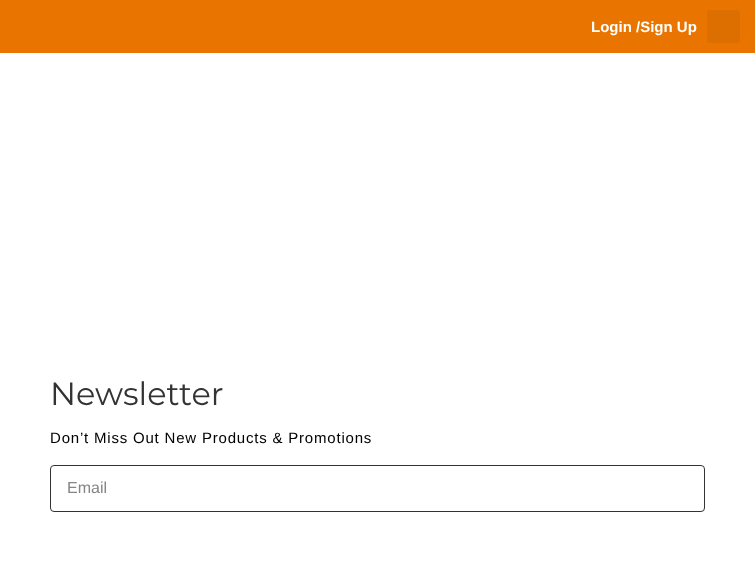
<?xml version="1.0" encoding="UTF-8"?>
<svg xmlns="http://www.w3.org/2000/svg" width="755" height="565">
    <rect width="100%" height="100%" fill="#FFFFFF"/>
    <rect x="0" y="0" width="755" height="53" fill="#E97500"/>
    <text x="591" y="32" font-family="Liberation Sans" font-size="15" font-weight="700" fill="#FFFFFF">Login /Sign Up</text>
    <rect x="707" y="10" width="33" height="33" rx="3" fill="#DD6F00"/>
    <text x="50" y="405" font-family="Montserrat" font-size="32" fill="#333333">Newsletter</text>
    <text x="50" y="443" font-family="Liberation Sans" font-size="15" letter-spacing="0.8" fill="#000000">Don’t Miss Out New Products &amp; Promotions</text>
    <rect x="50.5" y="465.5" width="654" height="46" rx="3.5" fill="none" stroke="#333333"/>
    <text x="67" y="493" font-family="Liberation Sans" font-size="16" fill="#858585">Email</text>
</svg>
